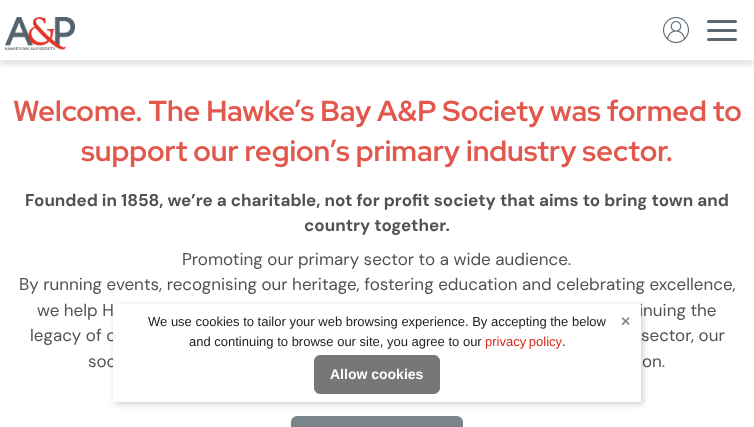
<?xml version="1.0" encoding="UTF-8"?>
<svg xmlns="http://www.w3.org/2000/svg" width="754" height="427">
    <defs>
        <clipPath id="clip1"><rect x="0" y="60" width="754" height="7"/></clipPath>
        <filter id="blur1" x="-50%" y="-200%" width="200%" height="500%"><feGaussianBlur stdDeviation="2.5"/></filter>
        <clipPath id="clip2"><path d="M 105 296 H 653 V 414 H 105 Z M 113 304 H 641 V 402 H 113 Z" clip-rule="evenodd"/></clipPath>
        <filter id="blur2" x="-50%" y="-200%" width="200%" height="500%"><feGaussianBlur stdDeviation="3"/></filter>
    </defs>
    <rect width="100%" height="100%" fill="#FFFFFF"/>
    <g clip-path="url(#clip1)">
        <rect x="0" y="5" width="754" height="60" fill="#000000" fill-opacity="0.1" filter="url(#blur1)"/>
    </g>
    <image x="5" y="17" width="70" height="33" href="img_01.png"/>
    <image x="663" y="17" width="26" height="26" href="img_02.png"/>
    <rect x="707" y="29" width="30" height="3" rx="1.5" fill="#5B6770"/>
    <rect x="707" y="20" width="30" height="3" rx="1.5" fill="#5B6770"/>
    <rect x="707" y="38" width="30" height="3" rx="1.5" fill="#5B6770"/>
    <text x="13" y="121" font-family="Red Hat Display" font-size="28.8" font-weight="700" fill="#E2584D">Welcome. The Hawke’s Bay A&amp;P Society was formed to</text>
    <text x="81" y="161" font-family="Red Hat Display" font-size="28.8" font-weight="700" fill="#E2584D">support our region’s primary industry sector.</text>
    <text x="25" y="206" font-family="DM Sans" font-size="17" font-weight="700" fill="#525252">Founded in 1858, we’re a charitable, not for profit society that aims to bring town and</text>
    <text x="304" y="231" font-family="DM Sans" font-size="17" font-weight="700" fill="#525252">country together.</text>
    <text x="182" y="265" font-family="DM Sans" font-size="17" fill="#525252">Promoting our primary sector to a wide audience.</text>
    <text x="19" y="290" font-family="DM Sans" font-size="17" fill="#525252">By running events, recognising our heritage, fostering education and celebrating excellence,</text>
    <text x="37" y="316" font-family="DM Sans" font-size="17" fill="#525252">we help H</text>
    <text x="639" y="316" font-family="DM Sans" font-size="17" fill="#525252">inuing the</text>
    <text x="30" y="341" font-family="DM Sans" font-size="17" fill="#525252">legacy of o</text>
    <text x="641" y="341" font-family="DM Sans" font-size="17" fill="#525252">sector, our</text>
    <text x="88" y="367" font-family="DM Sans" font-size="17" fill="#525252">soc</text>
    <text x="642" y="367" font-family="DM Sans" font-size="17" fill="#525252">on.</text>
    <rect x="291.5" y="416.5" width="171" height="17" rx="5.5" fill="#7B858C" stroke="#7B858C"/>
    <g clip-path="url(#clip2)">
        <rect x="115" y="306" width="528" height="98" fill="#000000" fill-opacity="0.2" filter="url(#blur2)"/>
    </g>
    <rect x="113" y="304" width="528" height="63" fill="#FFFFFF" fill-opacity="0.9"/>
    <text x="148" y="326" font-family="Liberation Sans" font-size="13" fill="#222222">We use cookies to tailor your web browsing experience. By accepting the below</text>
    <text x="189" y="346" font-family="Liberation Sans" font-size="13" fill="#222222">and continuing to browse our site, you agree to our</text>
    <text x="485" y="346" word-spacing="-1" font-family="Liberation Sans" font-size="13" fill="#DA291C">privacy policy</text>
    <text x="562" y="346" font-family="Liberation Sans" font-size="13" fill="#222222">.</text>
    <text x="620" y="326" font-family="DejaVu Sans" font-size="13" font-weight="700" fill="#888888">✕</text>
    <rect x="314.5" y="355.5" width="125" height="38" rx="5.5" fill="#777777" stroke="#777777"/>
    <text x="330" y="379" font-family="Liberation Sans" font-size="14" font-weight="700" fill="#FFFFFF">Allow cookies</text>
</svg>
